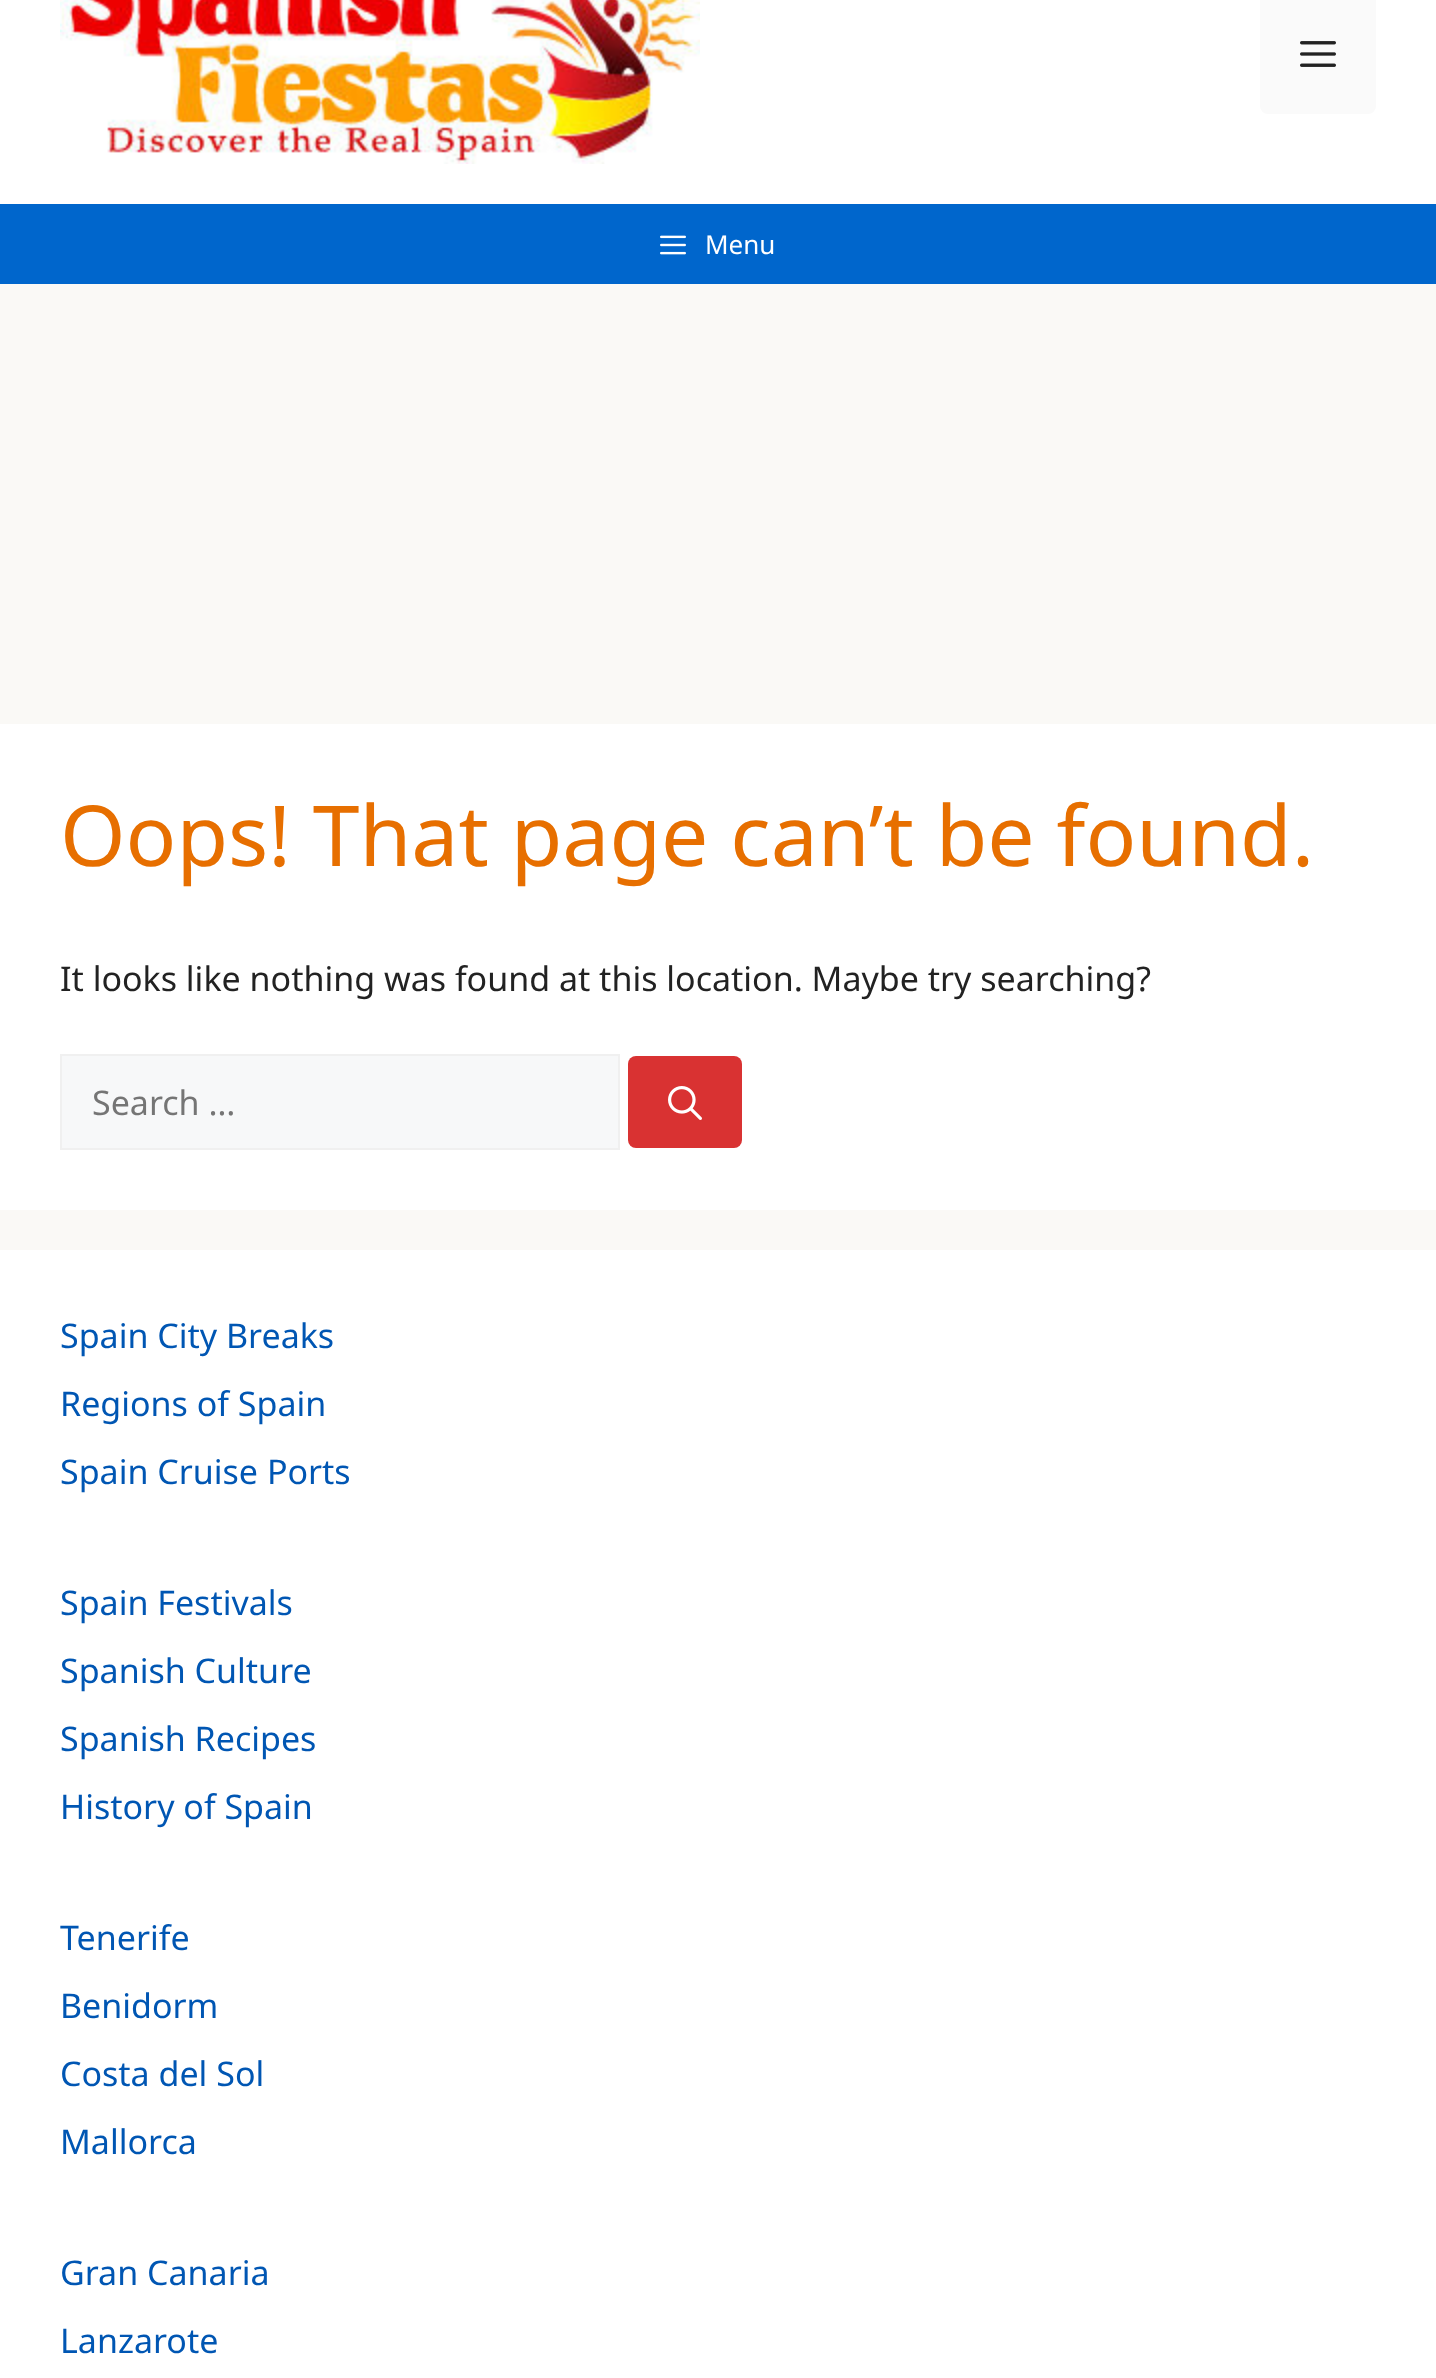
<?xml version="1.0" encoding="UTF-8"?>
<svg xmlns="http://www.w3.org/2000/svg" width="1436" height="2378">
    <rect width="100%" height="100%" fill="#FAF9F6"/>
    <rect x="0" y="0" width="1436" height="204" fill="#FFFFFF"/>
    <image x="60" y="0" width="640" height="164" href="img_01.png"/>
    <rect x="1260" y="-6" width="116" height="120" rx="8" fill="#FAFAFA"/>
    <image x="1300" y="41" width="36" height="26" href="img_02.png"/>
    <rect x="0" y="204" width="1436" height="80" fill="#0066CC"/>
    <image x="660" y="235" width="26" height="20" href="img_03.png"/>
    <text x="705" y="254" font-family="Noto Sans" font-size="26" fill="#FFFFFF">Menu</text>
    <rect x="0" y="724" width="1436" height="486" fill="#FFFFFF"/>
    <text x="60" y="866" font-family="Noto Sans" font-size="84" fill="#E76F00">Oops! That page can’t be found.</text>
    <text x="60" y="991" font-family="Noto Sans" font-size="34" fill="#222222">It looks like nothing was found at this location. Maybe try searching?</text>
    <rect x="61" y="1055" width="558" height="94" fill="#F7F8F9" stroke="#F0F0F0" stroke-width="2"/>
    <text x="92" y="1115" font-family="Noto Sans" font-size="34" fill="#757575">Search …</text>
    <rect x="628" y="1056" width="114" height="92" rx="8" fill="#D93232"/>
    <image x="668" y="1086" width="34" height="34" href="img_04.png"/>
    <rect x="0" y="1250" width="1436" height="1128" fill="#FFFFFF"/>
    <text x="60" y="1348" font-family="Noto Sans" font-size="34" fill="#0056B3">Spain City Breaks</text>
    <text x="60" y="1416" font-family="Noto Sans" font-size="34" fill="#0056B3">Regions of Spain</text>
    <text x="60" y="1484" font-family="Noto Sans" font-size="34" fill="#0056B3">Spain Cruise Ports</text>
    <text x="60" y="1615" font-family="Noto Sans" font-size="34" fill="#0056B3">Spain Festivals</text>
    <text x="60" y="1683" font-family="Noto Sans" font-size="34" fill="#0056B3">Spanish Culture</text>
    <text x="60" y="1751" font-family="Noto Sans" font-size="34" fill="#0056B3">Spanish Recipes</text>
    <text x="60" y="1819" font-family="Noto Sans" font-size="34" fill="#0056B3">History of Spain</text>
    <text x="60" y="1950" font-family="Noto Sans" font-size="34" fill="#0056B3">Tenerife</text>
    <text x="60" y="2018" font-family="Noto Sans" font-size="34" fill="#0056B3">Benidorm</text>
    <text x="60" y="2086" font-family="Noto Sans" font-size="34" fill="#0056B3">Costa del Sol</text>
    <text x="60" y="2154" font-family="Noto Sans" font-size="34" fill="#0056B3">Mallorca</text>
    <text x="60" y="2285" font-family="Noto Sans" font-size="34" fill="#0056B3">Gran Canaria</text>
    <text x="60" y="2353" font-family="Noto Sans" font-size="34" fill="#0056B3">Lanzarote</text>
</svg>
